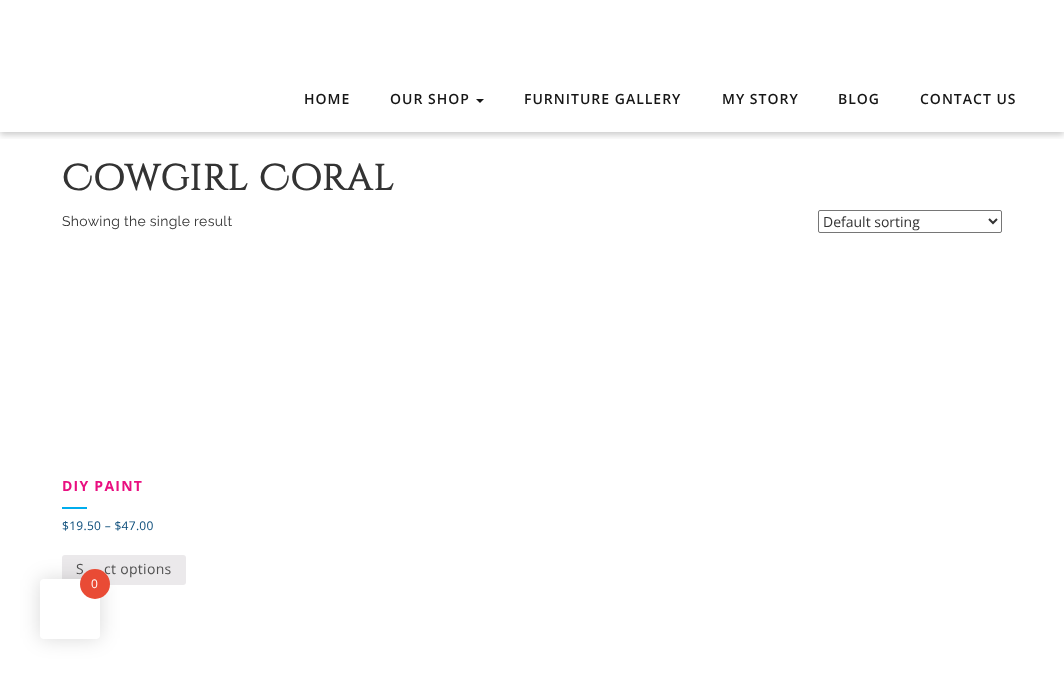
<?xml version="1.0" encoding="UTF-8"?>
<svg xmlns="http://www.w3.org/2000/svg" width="1064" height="679">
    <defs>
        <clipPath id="clip1"><rect x="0" y="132" width="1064" height="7"/></clipPath>
        <filter id="blur1" x="-50%" y="-200%" width="200%" height="500%"><feGaussianBlur stdDeviation="3"/></filter>
        <filter id="blur2" x="-50%" y="-200%" width="200%" height="500%"><feGaussianBlur stdDeviation="10"/></filter>
    </defs>
    <rect width="100%" height="100%" fill="#FFFFFF"/>
    <g clip-path="url(#clip1)">
        <rect x="0" y="3" width="1064" height="132" fill="#000000" fill-opacity="0.2" filter="url(#blur1)"/>
    </g>
    <text x="304" y="104" font-family="Open Sans" font-size="14" font-weight="600" letter-spacing="1" fill="#161616">HOME</text>
    <text x="390" y="104" font-family="Open Sans" font-size="14" font-weight="600" letter-spacing="1" fill="#161616">OUR SHOP</text>
    <path d="M 476 99 H 484 L 480 103 Z" fill="#161616"/>
    <text x="524" y="104" font-family="Open Sans" font-size="14" font-weight="600" letter-spacing="1" fill="#161616">FURNITURE GALLERY</text>
    <text x="722" y="104" font-family="Open Sans" font-size="14" font-weight="600" letter-spacing="1" fill="#161616">MY STORY</text>
    <text x="838" y="104" font-family="Open Sans" font-size="14" font-weight="600" letter-spacing="1" fill="#161616">BLOG</text>
    <text x="920" y="104" font-family="Open Sans" font-size="14" font-weight="600" letter-spacing="1" fill="#161616">CONTACT US</text>
    <text x="62" y="190" font-family="Cinzel Decorative" font-size="36" font-weight="700" letter-spacing="1.25" fill="#333333">Cowgirl Coral</text>
    <text x="62" y="226" font-family="Raleway" font-size="14" font-weight="100" letter-spacing="0.3" fill="#333333">Showing the single result</text>
    <rect x="818.5" y="210.5" width="183" height="22" rx="1.5" fill="none" stroke="#767676"/>
    <path d="M 989 219 L 993 223 L 997 219" fill="none" stroke="#333333" stroke-width="2"/>
    <text x="823" y="227" font-family="Open Sans" font-size="14" fill="#333333">Default sorting</text>
    <text x="62" y="491" font-family="Open Sans" font-size="14" font-weight="700" letter-spacing="1.25" fill="#E90F80">DIY PAINT</text>
    <rect x="62" y="507" width="25" height="2" fill="#00ADED"/>
    <text x="62" y="530" font-family="Open Sans" font-size="12" letter-spacing="0.3" fill="#094B79">$19.50 – $47.00</text>
    <rect x="62" y="555" width="124" height="30" rx="3" fill="#EBE9EB"/>
    <text x="76" y="574" font-family="Open Sans" font-size="14" letter-spacing="0.3" fill="#515151">S</text>
    <text x="104" y="574" font-family="Open Sans" font-size="14" letter-spacing="0.3" fill="#515151">ct options</text>
    <rect x="40" y="579" width="60" height="60" rx="4" fill="#000000" fill-opacity="0.15" filter="url(#blur2)"/>
    <rect x="40" y="579" width="60" height="60" rx="4" fill="#FFFFFF"/>
    <circle cx="95" cy="584" r="15" fill="#E94B35"/>
    <text x="91" y="588" font-family="Open Sans" font-size="12" letter-spacing="0.3" fill="#FFFFFF">0</text>
</svg>
